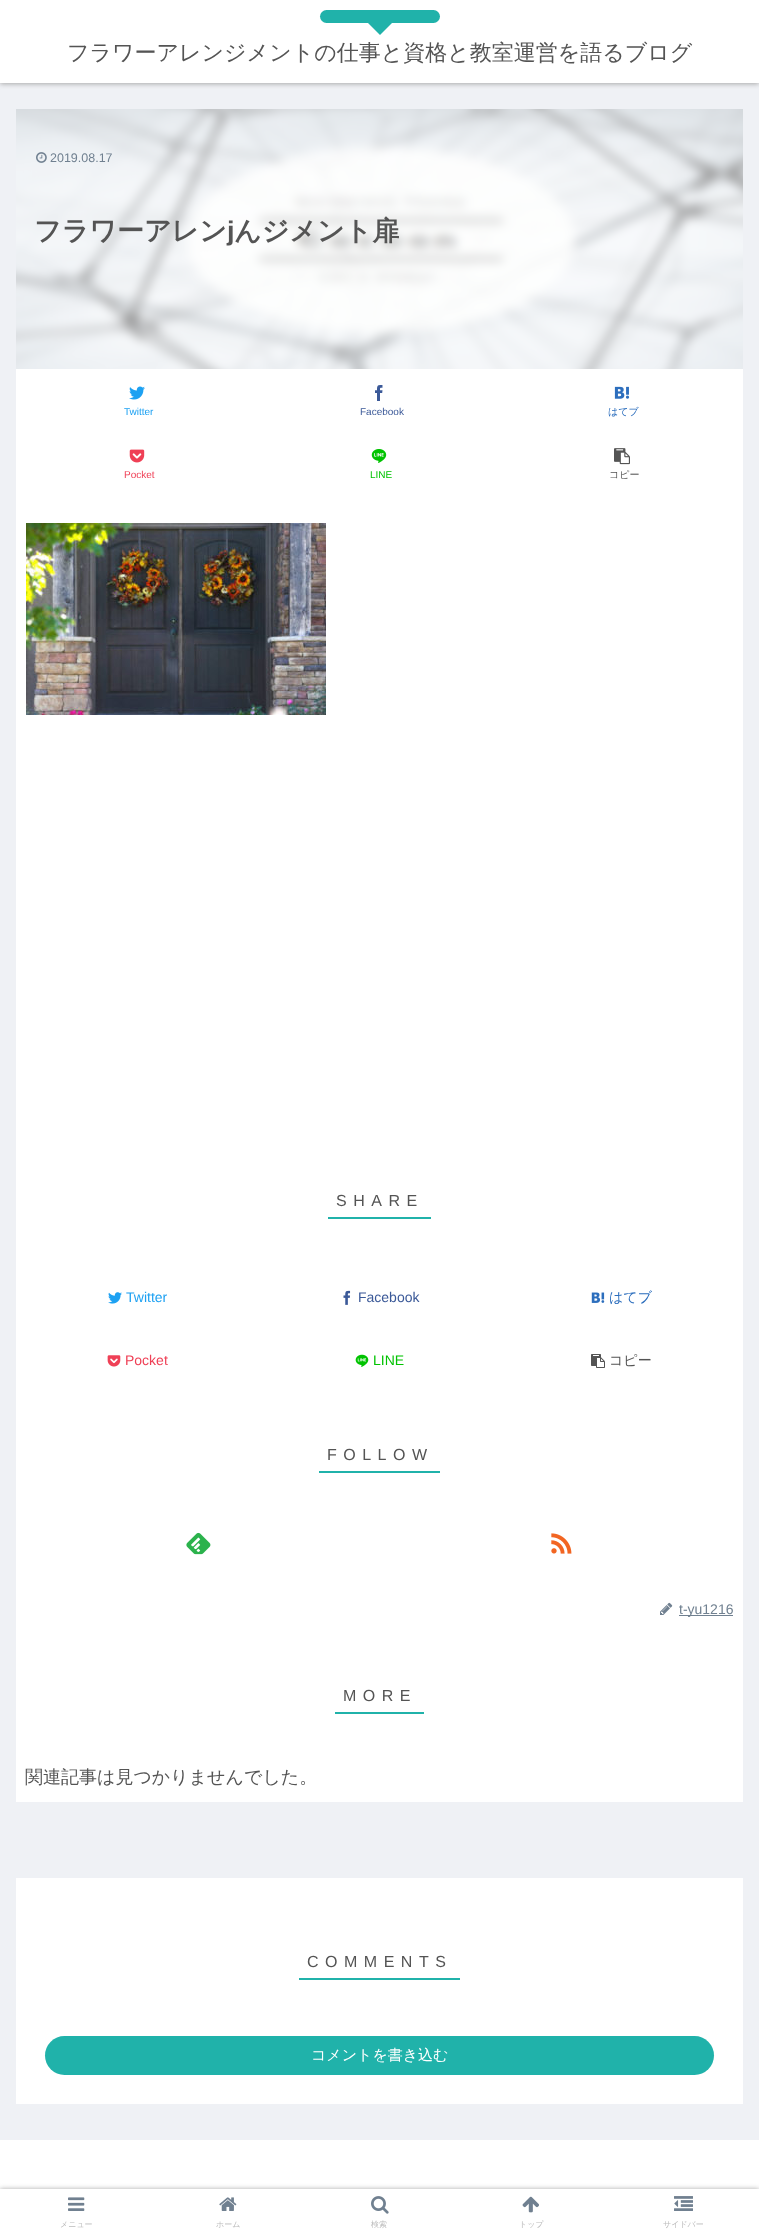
<?xml version="1.0" encoding="UTF-8"?>
<svg xmlns="http://www.w3.org/2000/svg" width="759" height="2239">
    <defs>
        <filter id="blur1" x="-50%" y="-200%" width="200%" height="500%"><feGaussianBlur stdDeviation="2.5"/></filter>
    </defs>
    <rect width="100%" height="100%" fill="#EFF1F5"/>
    <rect x="0" y="1" width="759" height="83" fill="#A9A9A9" filter="url(#blur1)"/>
    <rect x="0" y="0" width="759" height="83" fill="#FFFFFF"/>
    <rect x="320" y="10" width="120" height="13" rx="6.5" fill="#20B2AA"/>
    <path d="M 365 20 H 395 L 380 35 Z" fill="#20B2AA"/>
    <text x="67" y="60" font-family="WenQuanYi Zen Hei" font-size="22" font-weight="500" fill="#545454">フラワーアレンジメントの仕事と資格と教室運営を語るブログ</text>
    <rect x="16" y="109" width="727" height="1693" fill="#FFFFFF"/>
    <image x="16" y="109" width="727" height="260" href="img_01.png"/>
    <image x="36" y="152" width="11" height="11" href="img_02.png"/>
    <text x="50" y="162" font-family="Liberation Sans" font-size="12.5" fill="#708090">2019.08.17</text>
    <text x="34" y="240" font-family="WenQuanYi Zen Hei" font-size="27" font-weight="700" fill="#545454">フラワーアレン</text>
    <text x="227" y="240" font-family="Liberation Sans" font-size="27" font-weight="700" fill="#545454">j</text>
    <text x="234" y="240" font-family="WenQuanYi Zen Hei" font-size="27" font-weight="700" fill="#545454">んジメント扉</text>
    <image x="129" y="386" width="16" height="14" href="img_03.png"/>
    <text x="124" y="415" font-family="Liberation Sans" font-size="10" fill="#1DA1F2">Twitter</text>
    <image x="375" y="385" width="8" height="16" href="img_04.png"/>
    <text x="360" y="415" font-family="Liberation Sans" font-size="10" fill="#3B5998">Facebook</text>
    <image x="614" y="386" width="16" height="13" href="img_05.png"/>
    <text x="608" y="415" font-family="WenQuanYi Zen Hei" font-size="10" font-weight="500" fill="#2C6EBD">はてブ</text>
    <image x="129" y="449" width="16" height="14" href="img_06.png"/>
    <text x="124" y="478" font-family="Liberation Sans" font-size="10" fill="#EF4056">Pocket</text>
    <image x="371" y="449" width="16" height="14" href="img_07.png"/>
    <text x="370" y="478" font-family="Liberation Sans" font-size="10" fill="#00C300">LINE</text>
    <image x="614" y="448" width="16" height="17" href="img_08.png"/>
    <text x="609" y="478" font-family="WenQuanYi Zen Hei" font-size="10" font-weight="500" fill="#545454">コピー</text>
    <image x="26" y="523" width="300" height="192" href="img_09.png"/>
    <text x="336" y="1206" font-family="Liberation Sans" font-size="16" letter-spacing="6.5" fill="#545454">SHARE</text>
    <rect x="328" y="1217" width="103" height="2" fill="#20B2AA"/>
    <image x="108" y="1292" width="14" height="12" href="img_10.png"/>
    <text x="126" y="1302" font-family="Liberation Sans" font-size="14" fill="#1DA1F2">Twitter</text>
    <image x="343" y="1290" width="8" height="15" href="img_11.png"/>
    <text x="358" y="1302" font-family="Liberation Sans" font-size="14" fill="#3B5998">Facebook</text>
    <image x="591" y="1292" width="14" height="11" href="img_12.png"/>
    <text x="609" y="1302" font-family="WenQuanYi Zen Hei" font-size="14" font-weight="500" fill="#2C6EBD">はてブ</text>
    <image x="107" y="1355" width="14" height="12" href="img_13.png"/>
    <text x="125" y="1365" font-family="Liberation Sans" font-size="14" fill="#EF4056">Pocket</text>
    <image x="355" y="1354" width="14" height="13" href="img_14.png"/>
    <text x="373" y="1365" font-family="Liberation Sans" font-size="14" fill="#00C300">LINE</text>
    <image x="591" y="1354" width="14" height="14" href="img_15.png"/>
    <text x="609" y="1365" font-family="WenQuanYi Zen Hei" font-size="14" font-weight="500" fill="#545454">コピー</text>
    <text x="327" y="1460" font-family="Liberation Sans" font-size="16" letter-spacing="6.5" fill="#545454">FOLLOW</text>
    <rect x="319" y="1471" width="121" height="2" fill="#20B2AA"/>
    <image x="186" y="1532" width="25" height="23" href="img_16.png"/>
    <image x="551" y="1533" width="21" height="21" href="img_17.png"/>
    <image x="660" y="1602" width="13" height="13" href="img_18.png"/>
    <rect x="679" y="1615" width="54" height="1" fill="#708090"/>
    <text x="679" y="1614" font-family="Liberation Sans" font-size="14" fill="#708090">t-yu1216</text>
    <text x="343" y="1701" font-family="Liberation Sans" font-size="16" letter-spacing="6.5" fill="#545454">MORE</text>
    <rect x="335" y="1712" width="89" height="2" fill="#20B2AA"/>
    <text x="25" y="1783" font-family="WenQuanYi Zen Hei" font-size="18" font-weight="500" fill="#545454">関連記事は見つかりませんでした。</text>
    <rect x="16" y="1878" width="727" height="226" fill="#FFFFFF"/>
    <text x="307" y="1967" font-family="Liberation Sans" font-size="16" letter-spacing="6.5" fill="#545454">COMMENTS</text>
    <rect x="299" y="1978" width="161" height="2" fill="#20B2AA"/>
    <rect x="45" y="2036" width="669" height="39" rx="19.5" fill="#20B2AA"/>
    <text x="311" y="2060" font-family="WenQuanYi Zen Hei" font-size="15" font-weight="500" fill="#FFFFFF">コメントを書き込む</text>
    <rect x="0" y="2140" width="759" height="49" fill="#FFFFFF"/>
    <rect x="0" y="2189" width="759" height="50" fill="#A9A9A9" filter="url(#blur1)"/>
    <rect x="0" y="2189" width="759" height="50" fill="#FFFFFF"/>
    <image x="68" y="2197" width="17" height="14" href="img_19.png"/>
    <text x="60" y="2227" font-family="WenQuanYi Zen Hei" font-size="8" font-weight="500" fill="#BBBBBB">メニュー</text>
    <image x="219" y="2197" width="18" height="14" href="img_20.png"/>
    <text x="216" y="2227" font-family="WenQuanYi Zen Hei" font-size="8" font-weight="500" fill="#BBBBBB">ホーム</text>
    <image x="371" y="2196" width="18" height="18" href="img_21.png"/>
    <text x="371" y="2227" font-family="WenQuanYi Zen Hei" font-size="8" font-weight="500" fill="#BBBBBB">検索</text>
    <image x="522" y="2196" width="17" height="17" href="img_22.png"/>
    <text x="519" y="2227" font-family="WenQuanYi Zen Hei" font-size="8" font-weight="500" fill="#BBBBBB">トップ</text>
    <image x="674" y="2196" width="19" height="15" href="img_23.png"/>
    <text x="663" y="2227" font-family="WenQuanYi Zen Hei" font-size="8" font-weight="500" fill="#BBBBBB">サイドバー</text>
</svg>
